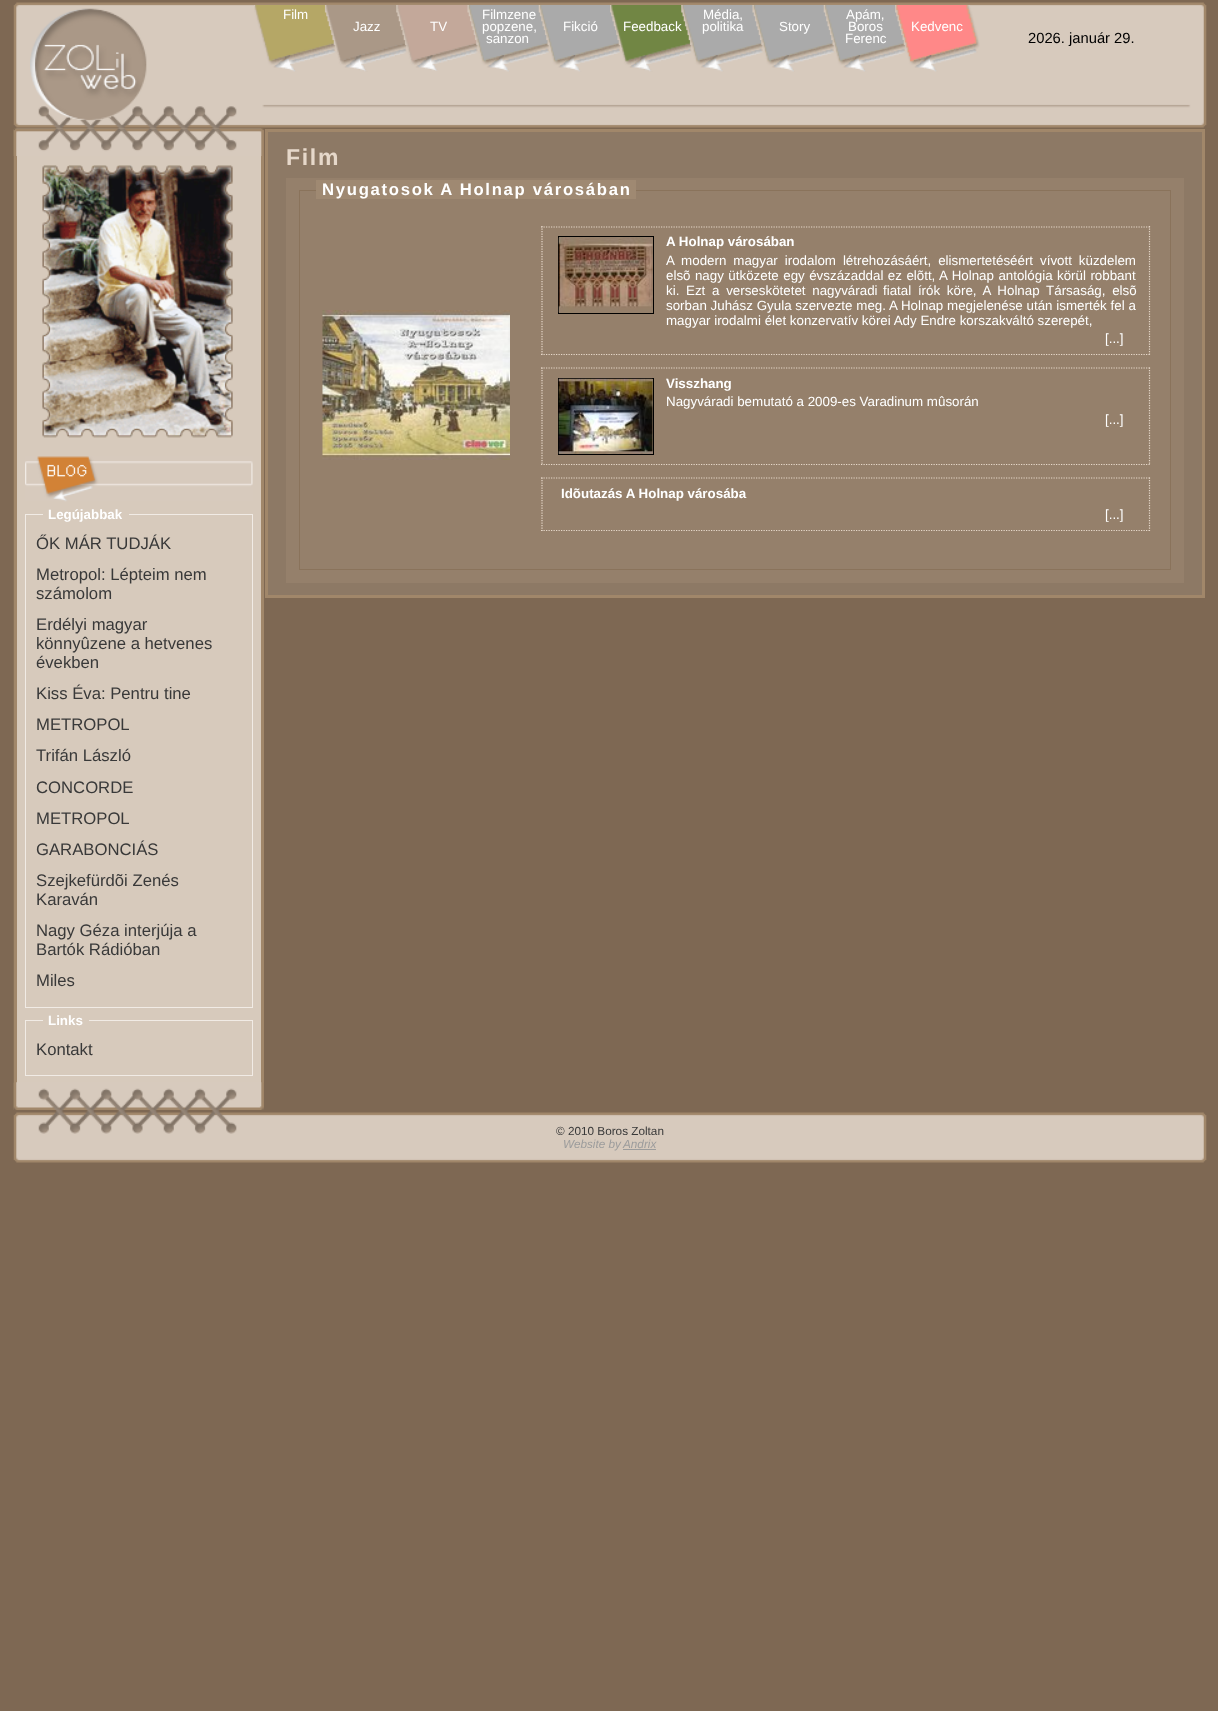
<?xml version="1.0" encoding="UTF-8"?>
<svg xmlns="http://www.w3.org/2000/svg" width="1218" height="1711">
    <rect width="100%" height="100%" fill="#7E6853"/>
    <image x="10" y="0" width="1200" height="129" href="img_01.png"/>
    <image x="30" y="8" width="117" height="113" href="img_02.png"/>
    <image x="254" y="5" width="83" height="67" href="img_03.png"/>
    <text x="283" y="19" font-family="Liberation Sans" font-size="13.35" fill="#FFFFFF">Film</text>
    <image x="324" y="5" width="84" height="67" href="img_04.png"/>
    <text x="353" y="31" font-family="Liberation Sans" font-size="13.35" fill="#FFFFFF">Jazz</text>
    <image x="396" y="5" width="83" height="66" href="img_05.png"/>
    <text x="430" y="31" font-family="Liberation Sans" font-size="13.35" fill="#FFFFFF">TV</text>
    <image x="467" y="5" width="84" height="67" href="img_06.png"/>
    <text font-family="Liberation Sans" font-size="13.35" fill="#FFFFFF">
        <tspan x="482" y="19">Filmzene</tspan>
        <tspan x="482" y="31">popzene,</tspan>
    </text>
    <text x="486" y="43" font-family="Liberation Sans" font-size="13.35" fill="#FFFFFF">sanzon</text>
    <image x="538" y="5" width="84" height="67" href="img_07.png"/>
    <text x="563" y="31" font-family="Liberation Sans" font-size="13.35" fill="#FFFFFF">Fikció</text>
    <image x="610" y="5" width="83" height="67" href="img_08.png"/>
    <image x="681" y="5" width="83" height="67" href="img_09.png"/>
    <text x="623" y="31" font-family="Liberation Sans" font-size="13.35" fill="#FFFFFF">Feedback</text>
    <text x="703" y="19" font-family="Liberation Sans" font-size="13.35" fill="#FFFFFF">Média,</text>
    <text x="702" y="31" font-family="Liberation Sans" font-size="13.35" fill="#FFFFFF">politika</text>
    <image x="752" y="5" width="84" height="67" href="img_10.png"/>
    <text x="779" y="31" font-family="Liberation Sans" font-size="13.35" fill="#FFFFFF">Story</text>
    <image x="823" y="5" width="84" height="67" href="img_07.png"/>
    <text x="846" y="19" font-family="Liberation Sans" font-size="13.35" fill="#FFFFFF">Apám,</text>
    <text x="848" y="31" font-family="Liberation Sans" font-size="13.35" fill="#FFFFFF">Boros</text>
    <text x="845" y="43" font-family="Liberation Sans" font-size="13.35" fill="#FFFFFF">Ferenc</text>
    <image x="895" y="5" width="85" height="67" href="img_11.png"/>
    <text x="911" y="31" font-family="Liberation Sans" font-size="13.35" fill="#FFFFFF">Kedvenc</text>
    <text x="1028" y="43" font-family="Liberation Sans" font-size="14.75" fill="#000000">2026. január 29.</text>
    <image x="13" y="128" width="251" height="29" href="img_12.png"/>
    <image x="13" y="128" width="251" height="29" href="img_13.png"/>
    <rect x="266.5" y="130.5" width="937" height="466" fill="#8D7965" stroke="#A1876A" stroke-width="3"/>
    <text x="286" y="165" font-family="Liberation Sans" font-size="23" font-weight="700" letter-spacing="1.7" fill="#E6D8CA">Film</text>
    <rect x="286" y="178" width="898" height="405" fill="#95806B"/>
    <rect x="299.5" y="190.5" width="871" height="379" fill="none" stroke="#8A735B"/>
    <rect x="316" y="180" width="320" height="19" fill="#9F8972"/>
    <text x="322" y="195" font-family="Liberation Sans" font-size="16.7" font-weight="700" letter-spacing="1.7" fill="#FFFFFF">Nyugatosok A Holnap városában</text>
    <image x="322" y="310" width="188" height="150" href="img_14.png"/>
    <path d="M 541 227 H 1150" fill="none" stroke="#E6D8CA" stroke-width="1.2" stroke-dasharray="1.25 1.25"/>
    <path d="M 1149.5 226 V 355" fill="none" stroke="#E6D8CA" stroke-width="1.2" stroke-dasharray="1.25 1.25"/>
    <path d="M 541 354.5 H 1150" fill="none" stroke="#E6D8CA" stroke-width="1.2" stroke-dasharray="1.25 1.25"/>
    <path d="M 542 226 V 355" fill="none" stroke="#E6D8CA" stroke-width="1.2" stroke-dasharray="1.25 1.25"/>
    <rect x="558.5" y="236.5" width="95" height="77" fill="none" stroke="#000000"/>
    <image x="558" y="237" width="95" height="76" href="img_15.png"/>
    <text x="666" y="246" font-family="Liberation Sans" font-size="13.35" font-weight="700" fill="#FFFFFF">A Holnap városában</text>
    <text font-family="Liberation Sans" font-size="13.35" fill="#FFFFFF">
        <tspan x="666" y="265" word-spacing="3.25">A modern magyar irodalom létrehozásáért, elismertetéséért vívott küzdelem</tspan>
        <tspan x="666" y="280" word-spacing="0.75">elsõ nagy ütközete egy évszázaddal ez elõtt, A Holnap antológia körül robbant</tspan>
        <tspan x="666" y="295" word-spacing="3">ki. Ezt a verseskötetet nagyváradi</tspan>
    </text>
    <text x="883" y="295" word-spacing="3" font-family="Liberation Sans" font-size="13.35" fill="#FFFFFF">fiatal írók köre, A Holnap Társaság, elsõ</text>
    <text font-family="Liberation Sans" font-size="13.35" fill="#FFFFFF">
        <tspan x="666" y="310" word-spacing="0.1">sorban Juhász Gyula szervezte meg. A Holnap megjelenése után ismerték fel a</tspan>
        <tspan x="666" y="325">magyar irodalmi élet konzervatív körei Ady Endre korszakváltó szerepét,</tspan>
    </text>
    <text x="1105" y="343" font-family="Liberation Sans" font-size="13.35" fill="#FFFFFF">[...]</text>
    <path d="M 541 368 H 1150" fill="none" stroke="#E6D8CA" stroke-width="1.2" stroke-dasharray="1.25 1.25"/>
    <path d="M 1149.5 367.5 V 465" fill="none" stroke="#E6D8CA" stroke-width="1.2" stroke-dasharray="1.25 1.25"/>
    <path d="M 541 464.5 H 1150" fill="none" stroke="#E6D8CA" stroke-width="1.2" stroke-dasharray="1.25 1.25"/>
    <path d="M 542 367.5 V 465" fill="none" stroke="#E6D8CA" stroke-width="1.2" stroke-dasharray="1.25 1.25"/>
    <rect x="558.5" y="378.5" width="95" height="76" fill="none" stroke="#000000"/>
    <image x="558" y="378" width="95" height="76" href="img_16.png"/>
    <text x="666" y="388" font-family="Liberation Sans" font-size="13.35" font-weight="700" fill="#FFFFFF">Visszhang</text>
    <text x="666" y="406" font-family="Liberation Sans" font-size="13.35" fill="#FFFFFF">Nagyváradi bemutató a 2009-es Varadinum mûsorán</text>
    <text x="1105" y="424" font-family="Liberation Sans" font-size="13.35" fill="#FFFFFF">[...]</text>
    <path d="M 541 478 H 1150" fill="none" stroke="#E6D8CA" stroke-width="1.2" stroke-dasharray="1.25 1.25"/>
    <path d="M 1149.5 477.5 V 531" fill="none" stroke="#E6D8CA" stroke-width="1.2" stroke-dasharray="1.25 1.25"/>
    <path d="M 541 530.5 H 1150" fill="none" stroke="#E6D8CA" stroke-width="1.2" stroke-dasharray="1.25 1.25"/>
    <path d="M 542 477.5 V 531" fill="none" stroke="#E6D8CA" stroke-width="1.2" stroke-dasharray="1.25 1.25"/>
    <text x="561" y="498" font-family="Liberation Sans" font-size="13.35" font-weight="700" fill="#FFFFFF">Idõutazás A Holnap városába</text>
    <text x="1105" y="519" font-family="Liberation Sans" font-size="13.35" fill="#FFFFFF">[...]</text>
    <image x="13" y="156" width="1" height="927" href="img_17.png"/>
    <rect x="17" y="156" width="244" height="927" fill="#D7CABC"/>
    <rect x="261" y="156" width="3" height="927" fill="#A1876A"/>
    <rect x="14" y="156" width="3" height="927" fill="#A1876A"/>
    <image x="42" y="165" width="191" height="273" href="img_18.png"/>
    <image x="25" y="456" width="228" height="46" href="img_19.png"/>
    <rect x="25.5" y="514.5" width="227" height="493" fill="none" stroke="#F1EBE5"/>
    <rect x="43" y="514" width="86" height="1" fill="#D7CABC"/>
    <text x="48" y="519" font-family="Liberation Sans" font-size="13.35" font-weight="700" fill="#FFFFFF">Legújabbak</text>
    <text font-family="Liberation Sans" font-size="16.7" fill="#393939">
        <tspan x="36" y="549">ŐK MÁR TUDJÁK</tspan>
        <tspan x="36" y="580">Metropol: Lépteim nem</tspan>
        <tspan x="36" y="599">számolom</tspan>
        <tspan x="36" y="630">Erdélyi magyar</tspan>
        <tspan x="36" y="649">könnyûzene a hetvenes</tspan>
        <tspan x="36" y="668">években</tspan>
        <tspan x="36" y="699">Kiss Éva: Pentru tine</tspan>
        <tspan x="36" y="730">METROPOL</tspan>
        <tspan x="36" y="761">Trifán László</tspan>
        <tspan x="36" y="793">CONCORDE</tspan>
        <tspan x="36" y="824">METROPOL</tspan>
        <tspan x="36" y="855">GARABONCIÁS</tspan>
        <tspan x="36" y="886">Szejkefürdõi Zenés</tspan>
        <tspan x="36" y="905">Karaván</tspan>
        <tspan x="36" y="936">Nagy Géza interjúja a</tspan>
        <tspan x="36" y="955">Bartók Rádióban</tspan>
        <tspan x="36" y="986">Miles</tspan>
    </text>
    <rect x="25.5" y="1020.5" width="227" height="55" fill="none" stroke="#F1EBE5"/>
    <rect x="43" y="1020" width="46" height="1" fill="#D7CABC"/>
    <text x="48" y="1025" font-family="Liberation Sans" font-size="13.35" font-weight="700" fill="#FFFFFF">Links</text>
    <text x="36" y="1055" font-family="Liberation Sans" font-size="16.7" fill="#393939">Kontakt</text>
    <image x="13" y="1082" width="251" height="28" href="img_20.png"/>
    <image x="13" y="1082" width="251" height="28" href="img_21.png"/>
    <image x="10" y="1110" width="1200" height="55" href="img_22.png"/>
    <text x="556" y="1135" font-family="Liberation Sans" font-size="11.75" fill="#393939">© 2010 Boros Zoltan</text>
    <text x="563" y="1148" font-family="Liberation Sans" font-size="11.75" font-style="italic" fill="#9C9C9C">Website by</text>
    <rect x="623" y="1149" width="33" height="1" fill="#9C9C9C"/>
    <text x="623" y="1148" font-family="Liberation Sans" font-size="11.75" font-style="italic" fill="#9C9C9C">Andrix</text>
</svg>
